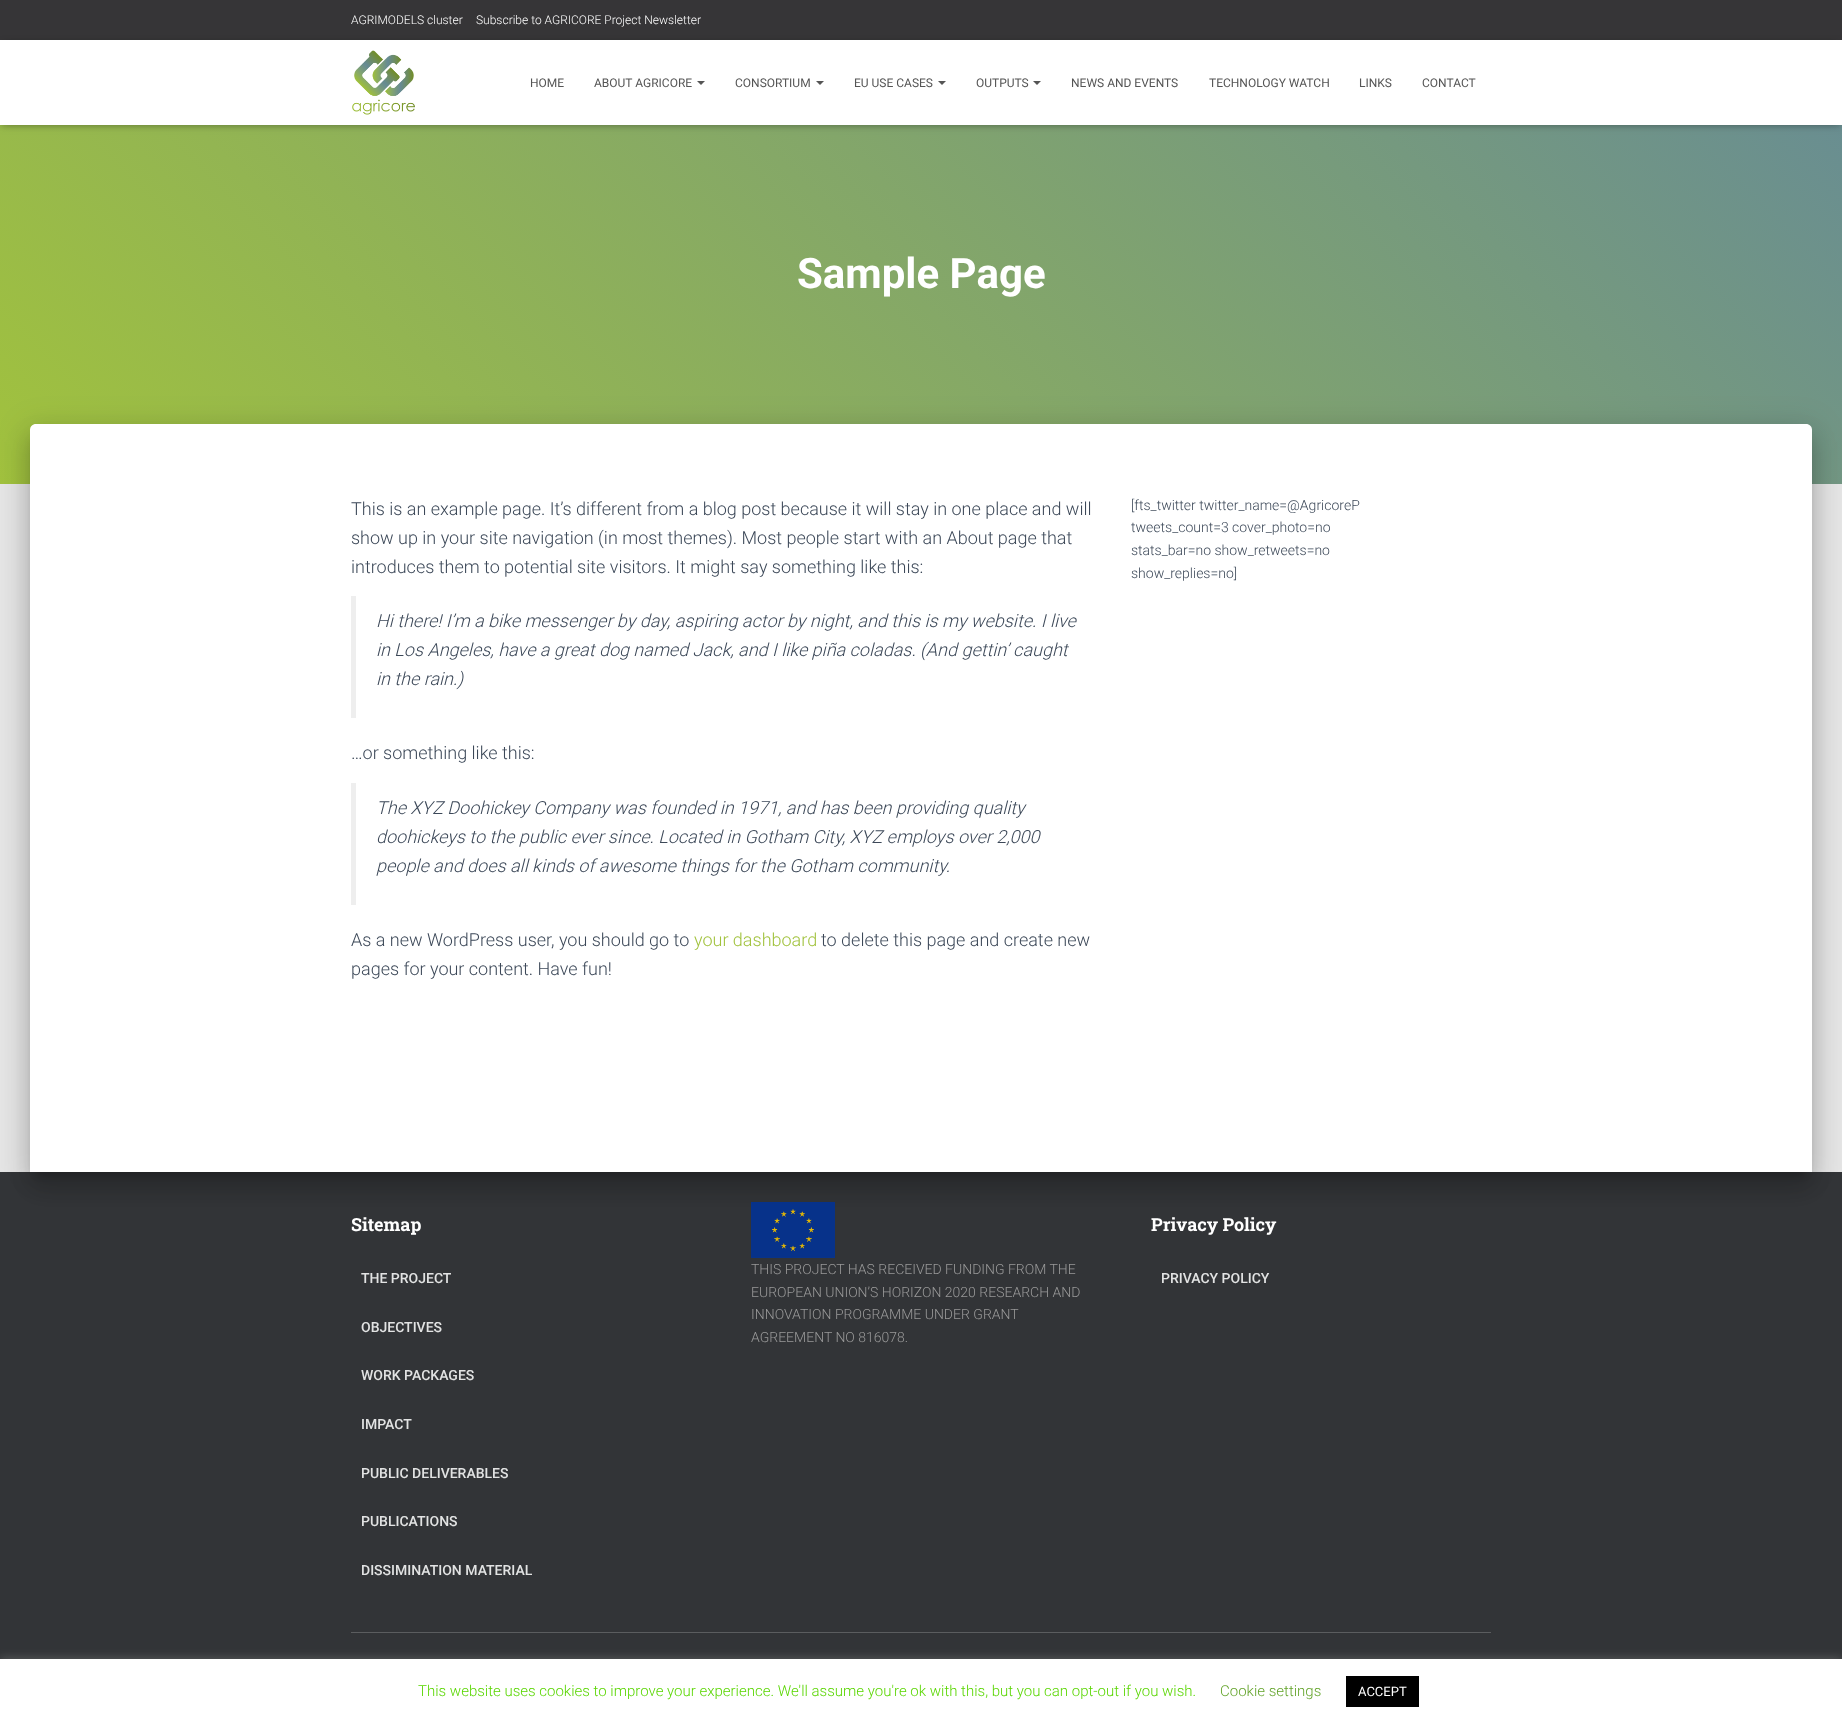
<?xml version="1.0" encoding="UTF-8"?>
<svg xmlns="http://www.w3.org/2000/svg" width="1842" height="1724">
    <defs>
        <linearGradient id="g1" gradientUnits="userSpaceOnUse" x1="350" y1="834" x2="1493" y2="-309"><stop offset="0" stop-color="#A1C23D"/><stop offset="1" stop-color="#678C94"/></linearGradient>
        <filter id="blur1" x="-50%" y="-200%" width="200%" height="500%"><feGaussianBlur stdDeviation="2.5"/></filter>
        <filter id="blur2" x="-50%" y="-200%" width="200%" height="500%"><feGaussianBlur stdDeviation="5"/></filter>
        <filter id="blur3" x="-50%" y="-200%" width="200%" height="500%"><feGaussianBlur stdDeviation="15"/></filter>
        <filter id="blur4" x="-50%" y="-200%" width="200%" height="500%"><feGaussianBlur stdDeviation="12"/></filter>
    </defs>
    <rect width="100%" height="100%" fill="#E5E5E5"/>
    <rect x="0" y="0" width="1842" height="40" fill="#363537"/>
    <text x="351" y="24" font-family="Roboto" font-size="12" font-weight="300" fill="#FFFFFF">AGRIMODELS cluster</text>
    <text x="476" y="24" font-family="Roboto" font-size="12" font-weight="300" fill="#FFFFFF">Subscribe to AGRICORE Project Newsletter</text>
    <rect x="0" y="125" width="1842" height="359" fill="url(#g1)"/>
    <rect x="2" y="46" width="1838" height="81" fill="#000000" fill-opacity="0.1" filter="url(#blur1)"/>
    <rect x="0" y="41" width="1842" height="85" fill="#000000" fill-opacity="0.12" filter="url(#blur2)"/>
    <rect x="6" y="47" width="1830" height="73" fill="#000000" fill-opacity="0.42" filter="url(#blur2)"/>
    <rect x="0" y="40" width="1842" height="85" fill="#FFFFFF"/>
    <image x="352" y="50" width="63" height="65" href="img_01.png"/>
    <text x="530" y="87" font-family="Roboto" font-size="12" fill="#555555">HOME</text>
    <text x="594" y="87" font-family="Roboto" font-size="12" fill="#555555">ABOUT AGRICORE</text>
    <path d="M 697 81 H 705 L 701 85 Z" fill="#555555"/>
    <text x="735" y="87" font-family="Roboto" font-size="12" fill="#555555">CONSORTIUM</text>
    <path d="M 816 81 H 824 L 820 85 Z" fill="#555555"/>
    <text x="854" y="87" font-family="Roboto" font-size="12" fill="#555555">EU USE CASES</text>
    <path d="M 938 81 H 946 L 942 85 Z" fill="#555555"/>
    <text x="976" y="87" font-family="Roboto" font-size="12" fill="#555555">OUTPUTS</text>
    <path d="M 1033 81 H 1041 L 1037 85 Z" fill="#555555"/>
    <text x="1071" y="87" font-family="Roboto" font-size="12" fill="#555555">NEWS AND EVENTS</text>
    <text x="1209" y="87" font-family="Roboto" font-size="12" fill="#555555">TECHNOLOGY WATCH</text>
    <text x="1359" y="87" font-family="Roboto" font-size="12" fill="#555555">LINKS</text>
    <text x="1422" y="87" font-family="Roboto" font-size="12" fill="#555555">CONTACT</text>
    <text x="797" y="288" font-family="Roboto" font-size="42" font-weight="700" fill="#FFFFFF">Sample Page</text>
    <rect x="0" y="1172" width="1842" height="487" fill="#323437"/>
    <rect x="35" y="437" width="1772" height="738" rx="1" fill="#000000" fill-opacity="0.2" filter="url(#blur2)"/>
    <rect x="25" y="425" width="1792" height="758" rx="11" fill="#000000" fill-opacity="0.12" filter="url(#blur3)"/>
    <rect x="28" y="438" width="1786" height="752" rx="8" fill="#000000" fill-opacity="0.14" filter="url(#blur4)"/>
    <path d="M 36 424 H 1806 C 1809.5 424 1812 426.5 1812 430 V 1172 H 30 V 430 C 30 426.5 32.5 424 36 424 Z" fill="#FFFFFF"/>
    <text font-family="Roboto" font-size="18" font-weight="300" fill="#3C4858">
        <tspan x="351" y="515">This is an example page. It’s different from a blog post because it will stay in one place and will</tspan>
        <tspan x="351" y="544">show up in your site navigation (in most themes). Most people start with an About page that</tspan>
        <tspan x="351" y="573">introduces them to potential site visitors. It might say something like this:</tspan>
    </text>
    <rect x="351" y="596" width="5" height="122" fill="#EEEEEE"/>
    <text font-family="Roboto" font-size="18" font-weight="300" font-style="italic" fill="#3C4858">
        <tspan x="376" y="627">Hi there! I’m a bike messenger by day, aspiring actor by night, and this is my website. I live</tspan>
        <tspan x="376" y="656">in Los Angeles, have a great dog named Jack, and I like piña coladas. (And gettin’ caught</tspan>
        <tspan x="376" y="685">in the rain.)</tspan>
    </text>
    <text x="351" y="759" font-family="Roboto" font-size="18" font-weight="300" fill="#3C4858">…or something like this:</text>
    <rect x="351" y="783" width="5" height="122" fill="#EEEEEE"/>
    <text font-family="Roboto" font-size="18" font-weight="300" font-style="italic" fill="#3C4858">
        <tspan x="376" y="814">The XYZ Doohickey Company was founded in 1971, and has been providing quality</tspan>
        <tspan x="376" y="843">doohickeys to the public ever since. Located in Gotham City, XYZ employs over 2,000</tspan>
        <tspan x="376" y="872">people and does all kinds of awesome things for the Gotham community.</tspan>
    </text>
    <text x="351" y="946" font-family="Roboto" font-size="18" font-weight="300" fill="#3C4858">As a new WordPress user, you should go to</text>
    <text x="694" y="946" font-family="Roboto" font-size="18" font-weight="300" fill="#A1C23D">your dashboard</text>
    <text x="821" y="946" font-family="Roboto" font-size="18" font-weight="300" fill="#3C4858">to delete this page and create new</text>
    <text x="351" y="975" font-family="Roboto" font-size="18" font-weight="300" fill="#3C4858">pages for your content. Have fun!</text>
    <text font-family="Roboto" font-size="14" font-weight="300" fill="#3C4858">
        <tspan x="1131" y="510">[fts_twitter twitter_name=@AgricoreP</tspan>
        <tspan x="1131" y="532">tweets_count=3 cover_photo=no</tspan>
        <tspan x="1131" y="555">stats_bar=no show_retweets=no</tspan>
        <tspan x="1131" y="578">show_replies=no]</tspan>
    </text>
    <text x="351" y="1231" font-family="Roboto Slab" font-size="18" font-weight="700" fill="#FFFFFF">Sitemap</text>
    <text x="361" y="1283" font-family="Roboto" font-size="14" font-weight="500" fill="#E2E3E3">THE PROJECT</text>
    <text x="361" y="1332" font-family="Roboto" font-size="14" font-weight="500" fill="#E2E3E3">OBJECTIVES</text>
    <text x="361" y="1380" font-family="Roboto" font-size="14" font-weight="500" fill="#E2E3E3">WORK PACKAGES</text>
    <text x="361" y="1429" font-family="Roboto" font-size="14" font-weight="500" fill="#E2E3E3">IMPACT</text>
    <text x="361" y="1478" font-family="Roboto" font-size="14" font-weight="500" fill="#E2E3E3">PUBLIC DELIVERABLES</text>
    <text x="361" y="1526" font-family="Roboto" font-size="14" font-weight="500" fill="#E2E3E3">PUBLICATIONS</text>
    <text x="361" y="1575" font-family="Roboto" font-size="14" font-weight="500" fill="#E2E3E3">DISSIMINATION MATERIAL</text>
    <text x="1151" y="1231" font-family="Roboto Slab" font-size="18" font-weight="700" fill="#FFFFFF">Privacy Policy</text>
    <text x="1161" y="1283" font-family="Roboto" font-size="14" font-weight="500" fill="#E2E3E3">PRIVACY POLICY</text>
    <image x="751" y="1202" width="84" height="56" href="img_02.png"/>
    <text font-family="Roboto" font-size="14" font-weight="300" fill="#999999">
        <tspan x="751" y="1274">THIS PROJECT HAS RECEIVED FUNDING FROM THE</tspan>
        <tspan x="751" y="1297">EUROPEAN UNION’S HORIZON 2020 RESEARCH AND</tspan>
        <tspan x="751" y="1319">INNOVATION PROGRAMME UNDER GRANT</tspan>
        <tspan x="751" y="1342">AGREEMENT NO 816078.</tspan>
    </text>
    <rect x="351" y="1632" width="1140" height="1" fill="#5B5D5F"/>
    <rect x="0" y="1658" width="1842" height="65" fill="#ACABAB" fill-opacity="0.3" filter="url(#blur2)"/>
    <rect x="0" y="1659" width="1842" height="65" fill="#FFFFFF"/>
    <text x="418" y="1696" font-family="Roboto" font-size="15" font-weight="300" fill="#59D600">This website uses cookies to improve your experience. We'll assume you're ok with this, but you can opt-out if you wish.</text>
    <text x="1220" y="1696" font-family="Roboto" font-size="15" font-weight="300" fill="#62A329">Cookie settings</text>
    <rect x="1346" y="1676" width="73" height="31" fill="#000000"/>
    <text x="1358" y="1696" font-family="Roboto" font-size="13" fill="#FFFFFF">ACCEPT</text>
</svg>
